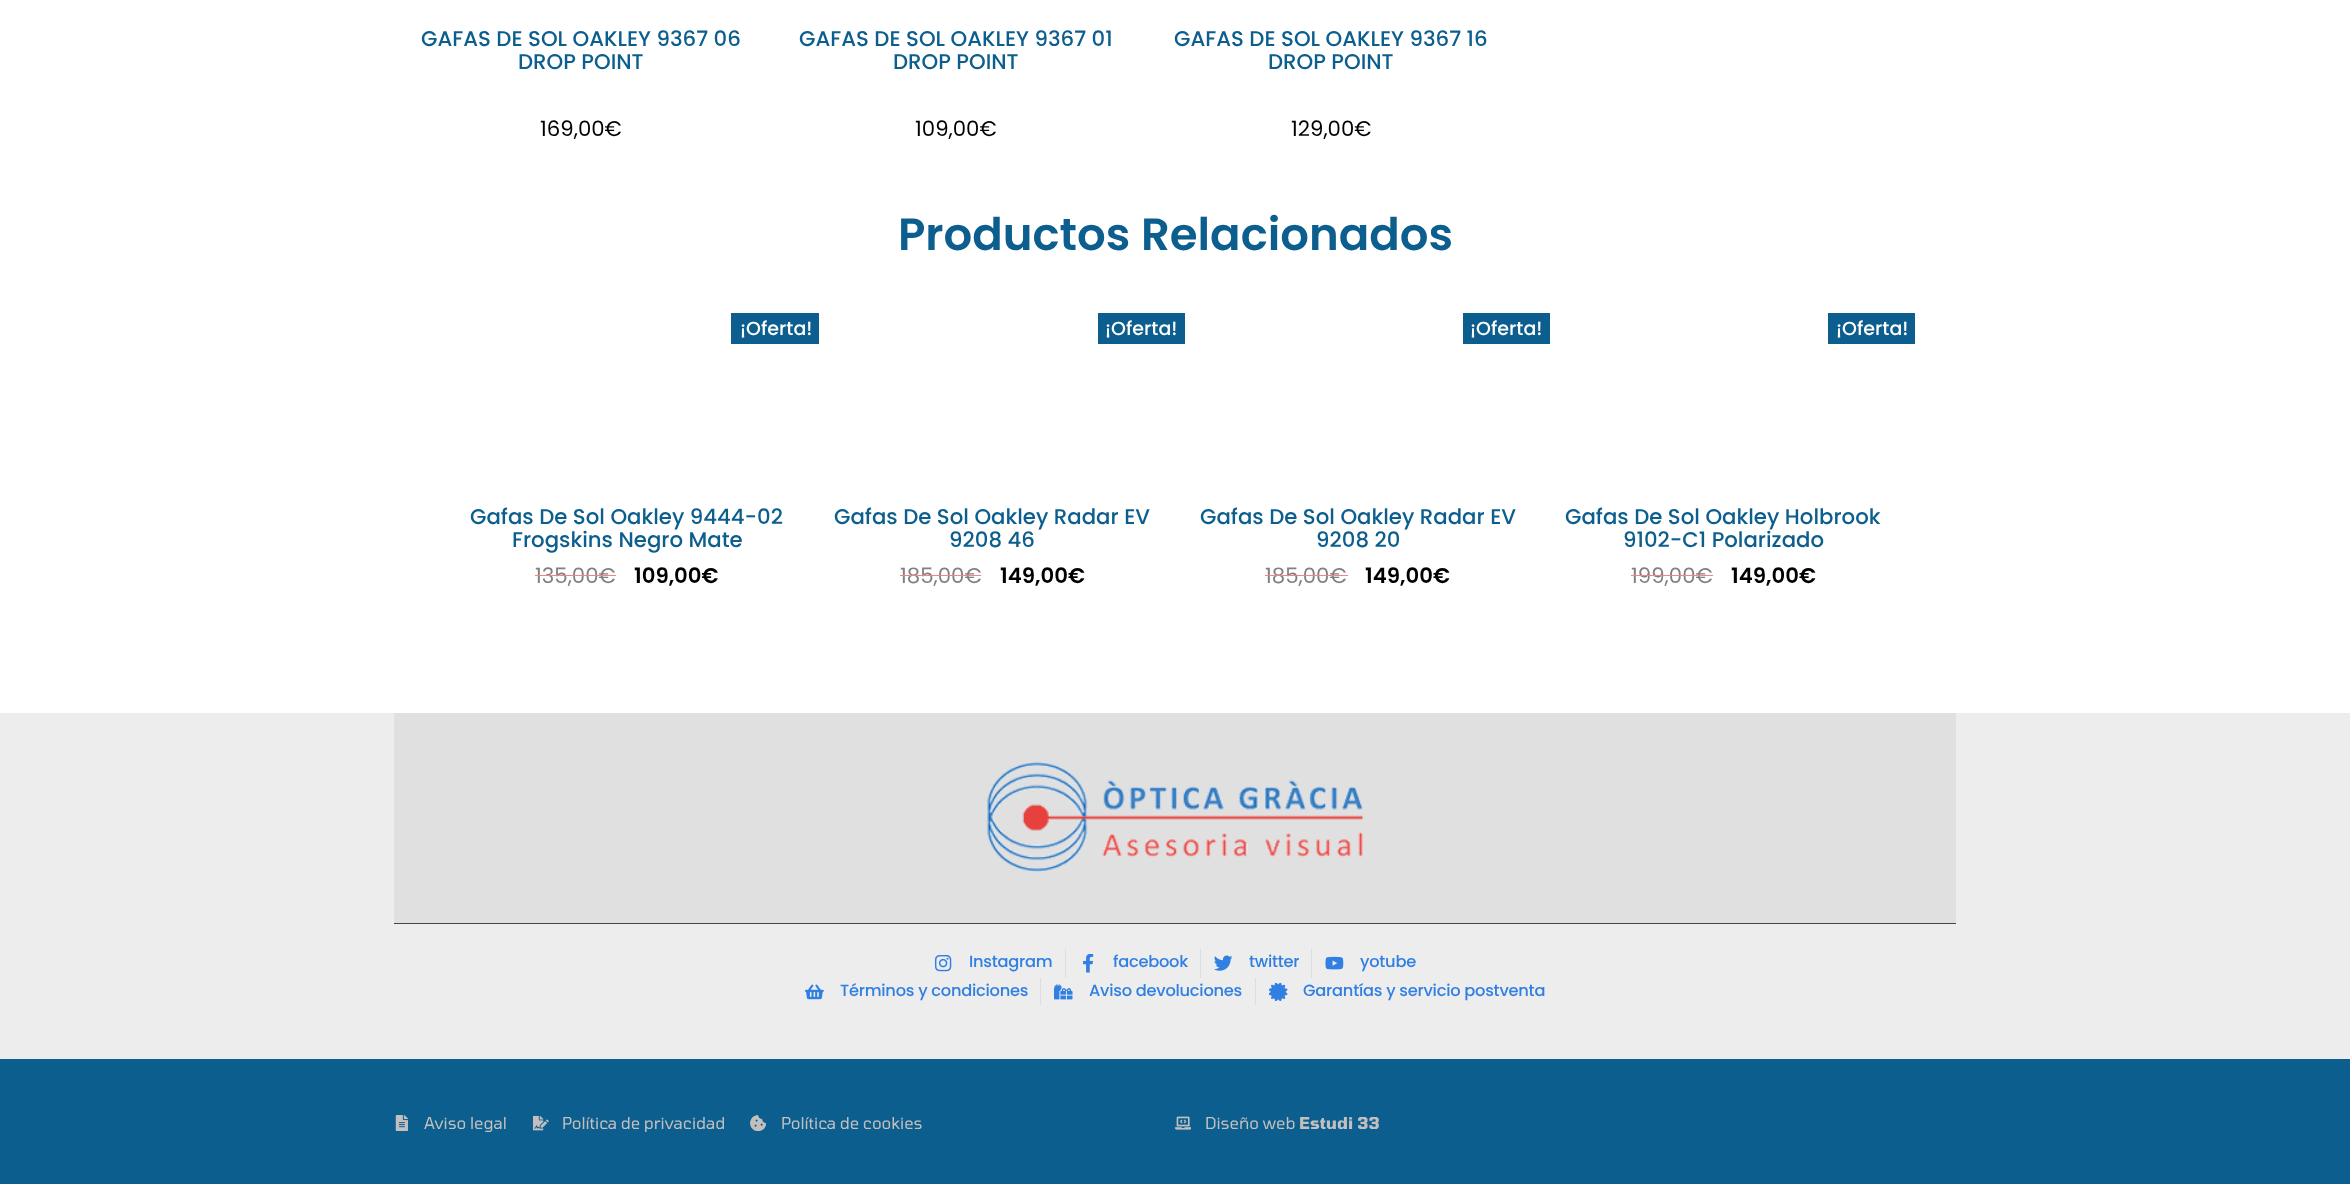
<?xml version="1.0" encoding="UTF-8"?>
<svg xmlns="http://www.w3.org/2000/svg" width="2350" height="1184">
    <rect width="100%" height="100%" fill="#FFFFFF"/>
    <text x="421" y="46" font-family="Poppins" font-size="21.25" font-weight="500" fill="#0B5E8D">GAFAS DE SOL OAKLEY 9367 06</text>
    <text x="518" y="69" font-family="Poppins" font-size="21.25" font-weight="500" fill="#0B5E8D">DROP POINT</text>
    <text x="540" y="136" font-family="Poppins" font-size="21.25" fill="#000000">169,00€</text>
    <text x="799" y="46" font-family="Poppins" font-size="21.25" font-weight="500" fill="#0B5E8D">GAFAS DE SOL OAKLEY 9367 01</text>
    <text x="893" y="69" font-family="Poppins" font-size="21.25" font-weight="500" fill="#0B5E8D">DROP POINT</text>
    <text x="915" y="136" font-family="Poppins" font-size="21.25" fill="#000000">109,00€</text>
    <text x="1174" y="46" font-family="Poppins" font-size="21.25" font-weight="500" fill="#0B5E8D">GAFAS DE SOL OAKLEY 9367 16</text>
    <text x="1268" y="69" font-family="Poppins" font-size="21.25" font-weight="500" fill="#0B5E8D">DROP POINT</text>
    <text x="1291" y="136" font-family="Poppins" font-size="21.25" fill="#000000">129,00€</text>
    <text x="898" y="250" font-family="Poppins" font-size="45" font-weight="600" fill="#0B5E8D">Productos Relacionados</text>
    <rect x="731" y="313" width="88" height="31" fill="#0B5E8D"/>
    <text x="740" y="335" font-family="Poppins" font-size="19" font-weight="500" fill="#FFFFFF">¡Oferta!</text>
    <text x="470" y="524" font-family="Poppins" font-size="21.25" font-weight="500" fill="#0B5E8D">Gafas De Sol Oakley 9444-02</text>
    <text x="512" y="547" font-family="Poppins" font-size="21.25" font-weight="500" fill="#0B5E8D">Frogskins Negro Mate</text>
    <text x="535" y="583" font-family="Poppins" font-size="21.25" fill="#808080">135,00€</text>
    <rect x="535" y="575" width="81" height="1" fill="#F28484"/>
    <text x="634" y="583" font-family="Poppins" font-size="21.25" font-weight="600" fill="#000000">109,00€</text>
    <rect x="1098" y="313" width="87" height="31" fill="#0B5E8D"/>
    <text x="1105" y="335" font-family="Poppins" font-size="19" font-weight="500" fill="#FFFFFF">¡Oferta!</text>
    <text x="834" y="524" font-family="Poppins" font-size="21.25" font-weight="500" fill="#0B5E8D">Gafas De Sol Oakley Radar EV</text>
    <text x="949" y="547" font-family="Poppins" font-size="21.25" font-weight="500" fill="#0B5E8D">9208 46</text>
    <text x="900" y="583" font-family="Poppins" font-size="21.25" fill="#808080">185,00€</text>
    <rect x="900" y="575" width="81" height="1" fill="#F28484"/>
    <text x="1000" y="583" font-family="Poppins" font-size="21.25" font-weight="600" fill="#000000">149,00€</text>
    <rect x="1463" y="313" width="87" height="31" fill="#0B5E8D"/>
    <text x="1470" y="335" font-family="Poppins" font-size="19" font-weight="500" fill="#FFFFFF">¡Oferta!</text>
    <text x="1200" y="524" font-family="Poppins" font-size="21.25" font-weight="500" fill="#0B5E8D">Gafas De Sol Oakley Radar EV</text>
    <text x="1316" y="547" font-family="Poppins" font-size="21.25" font-weight="500" fill="#0B5E8D">9208 20</text>
    <text x="1265" y="583" font-family="Poppins" font-size="21.25" fill="#808080">185,00€</text>
    <rect x="1265" y="575" width="83" height="1" fill="#F28484"/>
    <text x="1365" y="583" font-family="Poppins" font-size="21.25" font-weight="600" fill="#000000">149,00€</text>
    <rect x="1828" y="313" width="87" height="31" fill="#0B5E8D"/>
    <text x="1836" y="335" font-family="Poppins" font-size="19" font-weight="500" fill="#FFFFFF">¡Oferta!</text>
    <text x="1565" y="524" font-family="Poppins" font-size="21.25" font-weight="500" fill="#0B5E8D">Gafas De Sol Oakley Holbrook</text>
    <text x="1623" y="547" font-family="Poppins" font-size="21.25" font-weight="500" fill="#0B5E8D">9102-C1 Polarizado</text>
    <text x="1631" y="583" font-family="Poppins" font-size="21.25" fill="#808080">199,00€</text>
    <rect x="1631" y="575" width="82" height="1" fill="#F28484"/>
    <text x="1731" y="583" font-family="Poppins" font-size="21.25" font-weight="600" fill="#000000">149,00€</text>
    <rect x="0" y="713" width="2350" height="346" fill="#EDEDED"/>
    <rect x="394" y="713" width="1562" height="210" fill="#E0E0E0"/>
    <rect x="394" y="923" width="1562" height="1" fill="#454545"/>
    <image x="987" y="762" width="376" height="110" href="img_01.png"/>
    <image x="934" y="955" width="18" height="17" href="img_02.png"/>
    <text x="969" y="967" font-family="Poppins" font-size="16.25" font-weight="500" letter-spacing="-0.25" fill="#307FE2">Instagram</text>
    <rect x="1065" y="949" width="1" height="29" fill="#DDDDDD"/>
    <image x="1083" y="954" width="11" height="19" href="img_03.png"/>
    <text x="1113" y="967" font-family="Poppins" font-size="16.25" font-weight="500" letter-spacing="-0.25" fill="#307FE2">facebook</text>
    <rect x="1200" y="949" width="1" height="29" fill="#DDDDDD"/>
    <image x="1214" y="955" width="19" height="16" href="img_04.png"/>
    <text x="1249" y="967" font-family="Poppins" font-size="16.25" font-weight="500" letter-spacing="-0.25" fill="#307FE2">twitter</text>
    <rect x="1311" y="949" width="1" height="29" fill="#DDDDDD"/>
    <image x="1325" y="956" width="19" height="14" href="img_05.png"/>
    <text x="1360" y="967" font-family="Poppins" font-size="16.25" font-weight="500" letter-spacing="-0.25" fill="#307FE2">yotube</text>
    <image x="805" y="984" width="19" height="16" href="img_06.png"/>
    <text x="840" y="996" font-family="Poppins" font-size="16.25" font-weight="500" letter-spacing="-0.25" fill="#307FE2">Términos y condiciones</text>
    <rect x="1040" y="978" width="1" height="27" fill="#DDDDDD"/>
    <image x="1054" y="984" width="19" height="16" href="img_07.png"/>
    <text x="1089" y="996" font-family="Poppins" font-size="16.25" font-weight="500" letter-spacing="-0.25" fill="#307FE2">Aviso devoluciones</text>
    <rect x="1255" y="978" width="1" height="27" fill="#DDDDDD"/>
    <image x="1269" y="983" width="19" height="18" href="img_08.png"/>
    <text x="1303" y="996" font-family="Poppins" font-size="16.25" font-weight="500" letter-spacing="-0.25" fill="#307FE2">Garantías y servicio postventa</text>
    <rect x="0" y="1059" width="2350" height="125" fill="#0B5E8D"/>
    <image x="395" y="1115" width="13" height="16" href="img_09.png"/>
    <text x="424" y="1129" font-family="Tomorrow" font-size="16.25" fill="#C3BFBF">Aviso legal</text>
    <image x="533" y="1115" width="16" height="16" href="img_10.png"/>
    <text x="562" y="1129" font-family="Tomorrow" font-size="16.25" fill="#C3BFBF">Política de privacidad</text>
    <image x="750" y="1115" width="16" height="16" href="img_11.png"/>
    <text x="781" y="1129" font-family="Tomorrow" font-size="16.25" fill="#C3BFBF">Política de cookies</text>
    <image x="1175" y="1116" width="16" height="14" href="img_12.png"/>
    <text x="1205" y="1129" font-family="Tomorrow" font-size="16.25" fill="#C3BFBF">Diseño web</text>
    <text x="1299" y="1129" font-family="Tomorrow" font-size="16.25" font-weight="700" fill="#C3BFBF">Estudi 33</text>
</svg>
